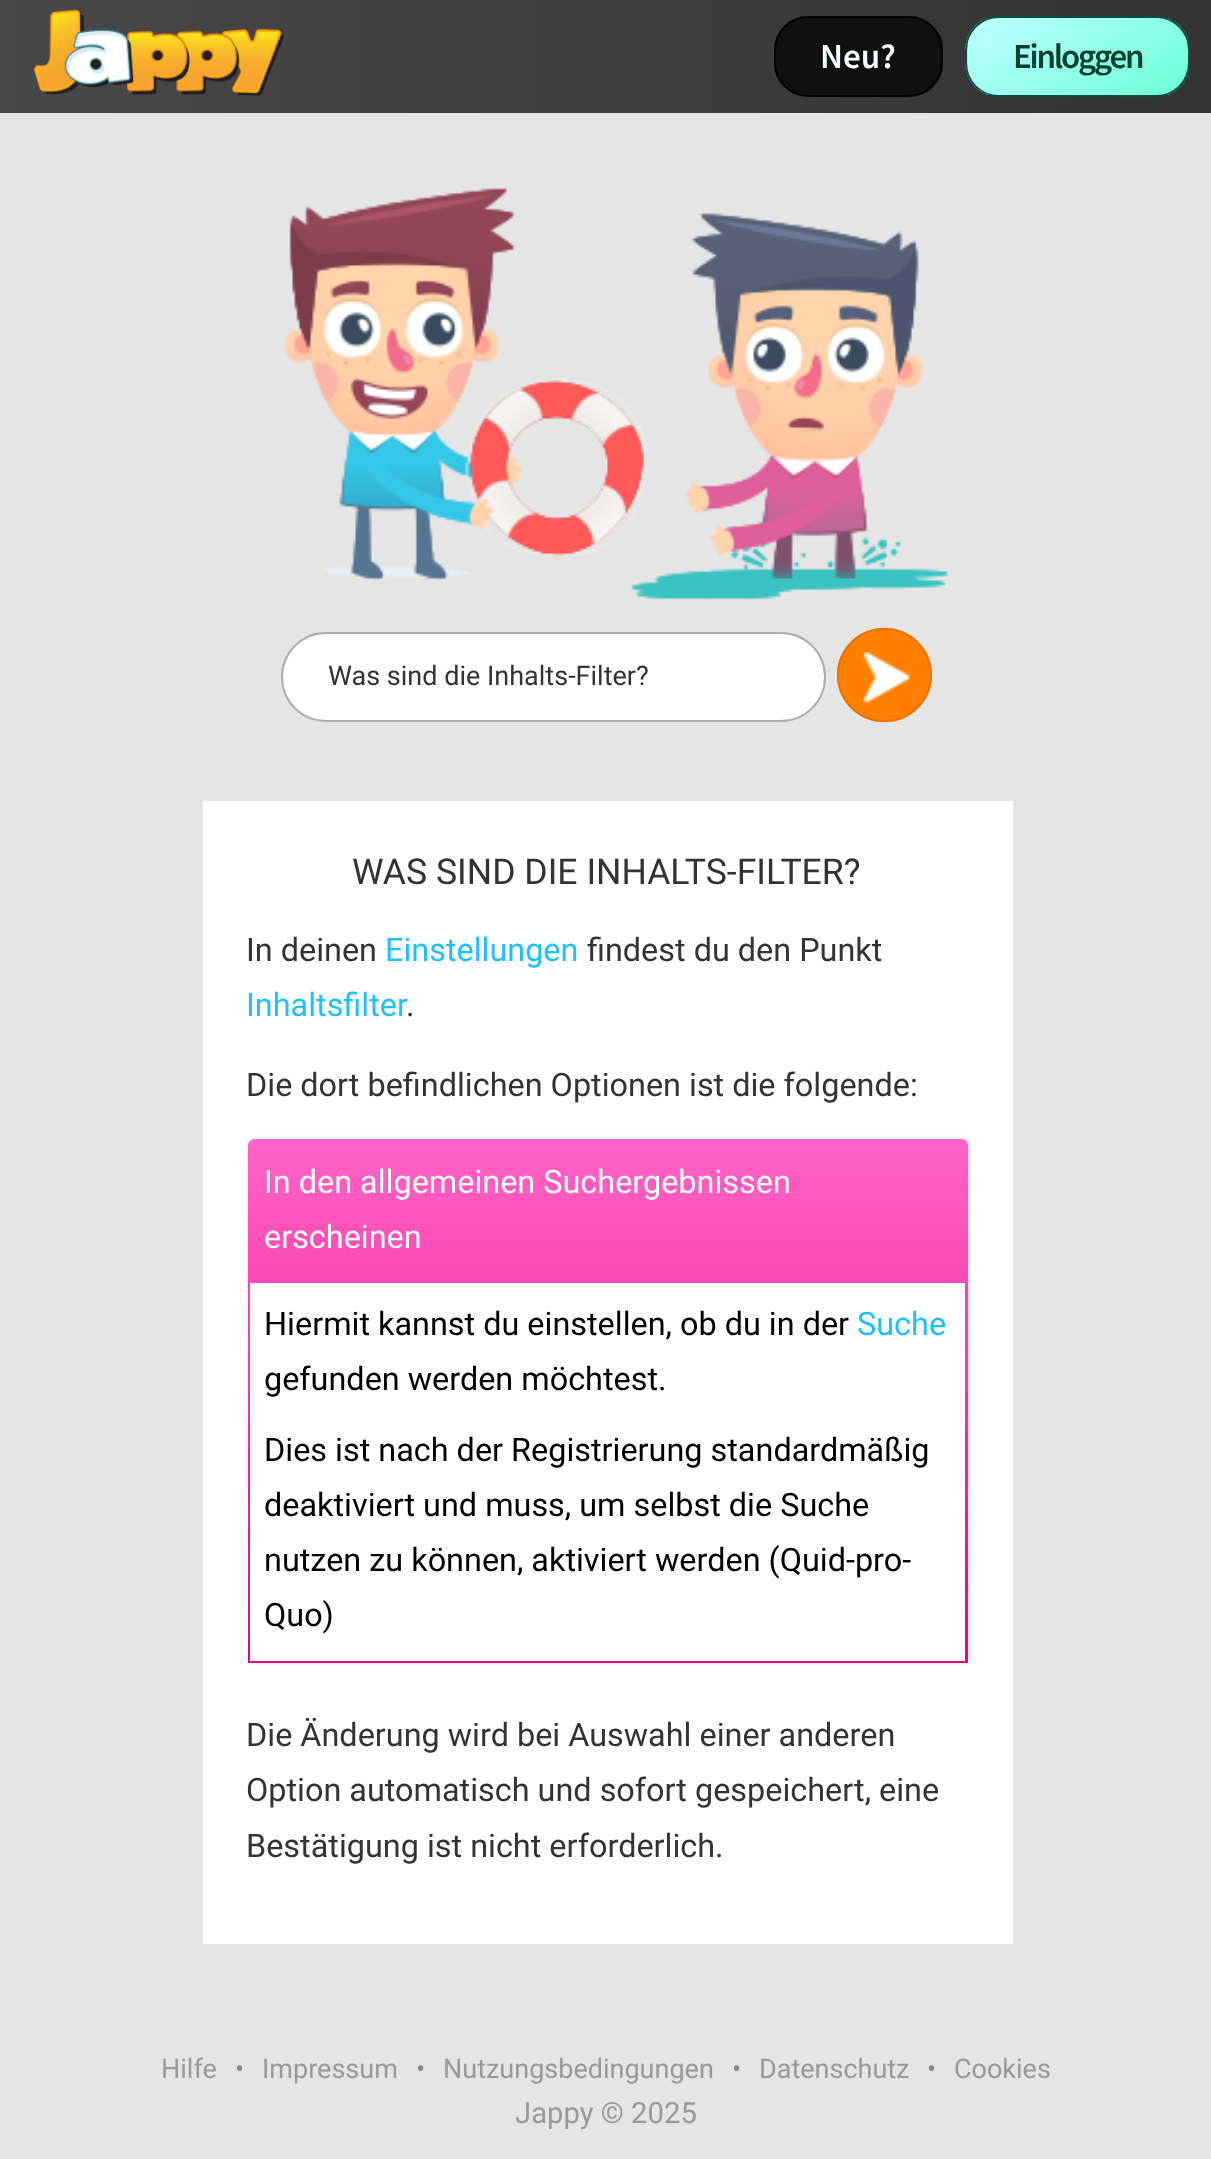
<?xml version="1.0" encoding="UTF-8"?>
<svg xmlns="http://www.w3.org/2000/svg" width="1211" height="2159">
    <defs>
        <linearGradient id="g1" gradientUnits="userSpaceOnUse" x1="0" y1="56" x2="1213" y2="56"><stop offset="0" stop-color="#484848"/><stop offset="1" stop-color="#333333"/></linearGradient>
        <clipPath id="clip1"><rect x="965" y="16" width="225" height="81" rx="34"/></clipPath>
        <linearGradient id="g2" gradientUnits="userSpaceOnUse" x1="803" y1="-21" x2="911" y2="134"><stop offset="0" stop-color="#C0FFFF"/><stop offset="1" stop-color="#6BFFD6"/></linearGradient>
        <linearGradient id="g3" gradientUnits="userSpaceOnUse" x1="1024" y1="-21" x2="1132" y2="134"><stop offset="0" stop-color="#C0FFFF"/><stop offset="1" stop-color="#6BFFD6"/></linearGradient>
        <filter id="blur1" x="-50%" y="-200%" width="200%" height="500%"><feGaussianBlur stdDeviation="2"/></filter>
        <linearGradient id="g4" gradientUnits="userSpaceOnUse" x1="608" y1="1663" x2="608" y2="1139"><stop offset="0" stop-color="#EC0083"/><stop offset="1" stop-color="#FF64C6"/></linearGradient>
    </defs>
    <rect width="100%" height="100%" fill="#E5E5E5"/>
    <rect x="0" y="0" width="1211" height="113" fill="url(#g1)"/>
    <image x="34" y="9" width="250" height="87" href="img_01.png"/>
    <rect x="775" y="17" width="167" height="79" rx="33" fill="#101010" stroke="#000000" stroke-width="2"/>
    <text x="820" y="68" font-family="Source Sans Pro" font-size="35" font-weight="600" fill="#F6FEFF">Neu?</text>
    <g clip-path="url(#clip1)">
        <rect x="965" y="36" width="3" height="41" fill="url(#g2)"/>
        <rect x="968" y="18" width="220" height="77" fill="url(#g3)"/>
    </g>
    <rect x="966" y="17" width="223" height="79" rx="33" fill="none" stroke="#0C4C41" stroke-width="2"/>
    <text x="1013" y="68" font-family="Source Sans Pro" font-size="35" font-weight="600" letter-spacing="-2.25" fill="#064031">Einloggen</text>
    <image x="285" y="188" width="663" height="412" href="img_02.png"/>
    <rect x="282" y="633" width="543" height="88" rx="44" fill="#FFFFFF" stroke="#ADADAD" stroke-width="2"/>
    <text x="328" y="685" font-family="Roboto" font-size="27" fill="#333333">Was sind die Inhalts-Filter?</text>
    <rect x="837" y="628" width="95" height="94" rx="47" fill="#FF7F00"/>
    <image x="863" y="652" width="47" height="51" href="img_03.png"/>
    <rect x="838" y="629" width="93" height="92" rx="46" fill="none" stroke="#E87400" stroke-width="2"/>
    <rect x="203" y="801" width="810" height="1143" fill="#FFFFFF"/>
    <text x="352" y="884" font-family="Roboto" font-size="35.6" fill="#333333">WAS SIND DIE INHALTS-FILTER?</text>
    <text x="246" y="961" font-family="Roboto" font-size="32.4" fill="#333333">In deinen</text>
    <text x="385" y="961" font-family="Roboto" font-size="32.4" fill="#1EC0FF">Einstellungen</text>
    <text x="587" y="961" font-family="Roboto" font-size="32.4" fill="#333333">findest du den Punkt</text>
    <text x="246" y="1016" font-family="Roboto" font-size="32.4" fill="#1EC0FF">Inhaltsfilter</text>
    <text x="406" y="1016" font-family="Roboto" font-size="32.4" fill="#333333">.</text>
    <text x="246" y="1096" font-family="Roboto" font-size="32.4" fill="#333333">Die dort befindlichen Optionen ist die folgende:</text>
    <rect x="250" y="1139" width="720" height="524" rx="7" fill="#000000" fill-opacity="0.15" filter="url(#blur1)"/>
    <path d="M 255 1139 H 961 C 965 1139 968 1142 968 1146 V 1663 H 248 V 1146 C 248 1142 251 1139 255 1139 Z" fill="url(#g4)"/>
    <text font-family="Roboto" font-size="32.4" fill="#FFFFFF">
        <tspan x="264" y="1193">In den allgemeinen Suchergebnissen</tspan>
        <tspan x="264" y="1248">erscheinen</tspan>
    </text>
    <rect x="250" y="1283" width="715" height="378" fill="#FFFFFF"/>
    <text x="264" y="1335" font-family="Roboto" font-size="32.4" fill="#000000">Hiermit kannst du einstellen, ob du in der</text>
    <text x="857" y="1335" font-family="Roboto" font-size="32.4" fill="#1EC0FF">Suche</text>
    <text x="264" y="1390" font-family="Roboto" font-size="32.4" fill="#000000">gefunden werden möchtest.</text>
    <text font-family="Roboto" font-size="32.4" fill="#000000">
        <tspan x="264" y="1461">Dies ist nach der Registrierung standardmäßig</tspan>
        <tspan x="264" y="1516">deaktiviert und muss, um selbst die Suche</tspan>
        <tspan x="264" y="1571">nutzen zu können, aktiviert werden (Quid-pro-</tspan>
        <tspan x="264" y="1626">Quo)</tspan>
    </text>
    <text font-family="Roboto" font-size="32.4" fill="#333333">
        <tspan x="246" y="1746">Die Änderung wird bei Auswahl einer anderen</tspan>
        <tspan x="246" y="1801">Option automatisch und sofort gespeichert, eine</tspan>
        <tspan x="246" y="1857">Bestätigung ist nicht erforderlich.</tspan>
    </text>
    <text x="161" y="2078" font-family="Roboto" font-size="27" fill="#999999">Hilfe</text>
    <text x="235" y="2078" font-family="Roboto" font-size="27" fill="#878787">•</text>
    <text x="262" y="2078" font-family="Roboto" font-size="27" fill="#999999">Impressum</text>
    <text x="416" y="2078" font-family="Roboto" font-size="27" fill="#878787">•</text>
    <text x="443" y="2078" font-family="Roboto" font-size="27" fill="#999999">Nutzungsbedingungen</text>
    <text x="732" y="2078" font-family="Roboto" font-size="27" fill="#878787">•</text>
    <text x="759" y="2078" font-family="Roboto" font-size="27" fill="#999999">Datenschutz</text>
    <text x="927" y="2078" font-family="Roboto" font-size="27" fill="#878787">•</text>
    <text x="954" y="2078" font-family="Roboto" font-size="27" fill="#999999">Cookies</text>
    <text x="515" y="2123" font-family="Roboto" font-size="29.25" fill="#999999">Jappy © 2025</text>
</svg>
